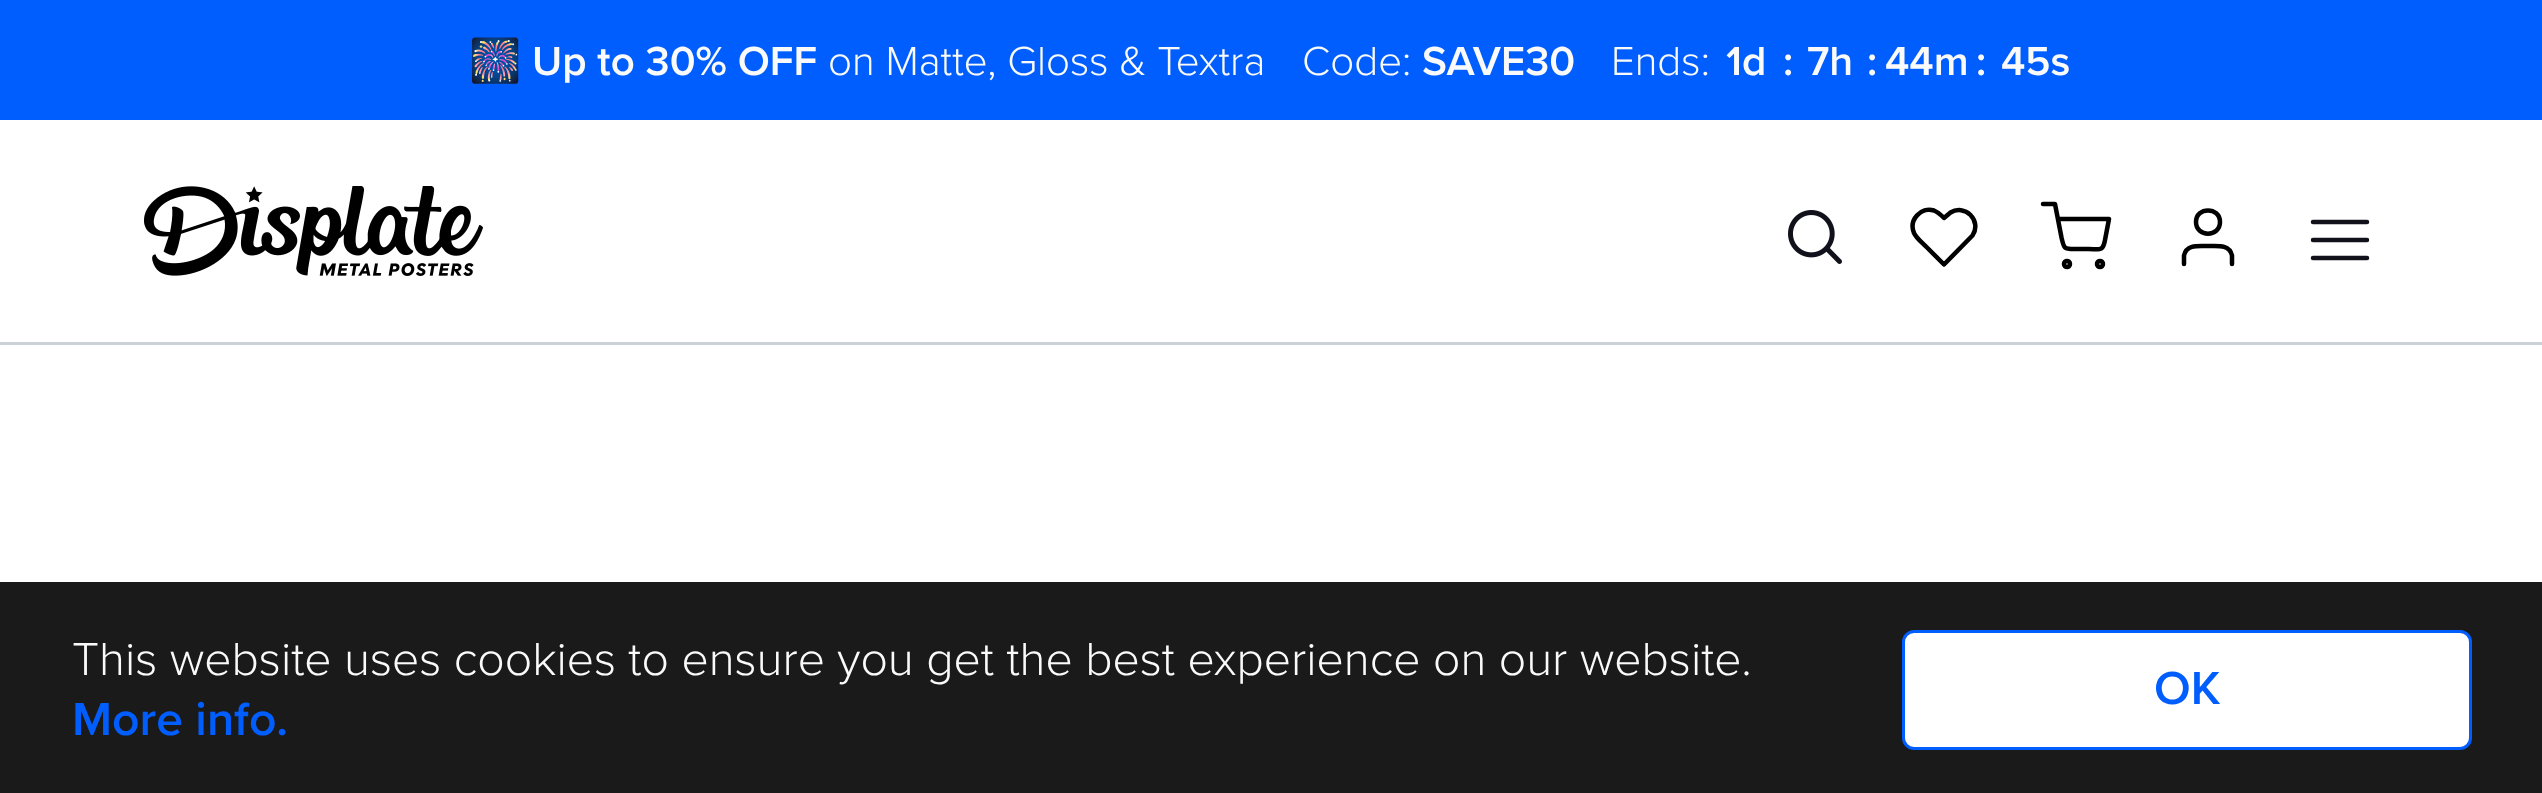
<?xml version="1.0" encoding="UTF-8"?>
<svg xmlns="http://www.w3.org/2000/svg" width="2542" height="793">
    <rect width="100%" height="100%" fill="#FFFFFF"/>
    <rect x="0" y="0" width="2542" height="120" fill="#005EFF"/>
    <text x="469" y="75" font-family="Noto Color Emoji" font-size="42" font-weight="700" fill="#FAFAFA">🎆</text>
    <text x="532" y="75" font-family="Proxima Nova" font-size="42" font-weight="600" fill="#FAFAFA">Up to 30% OFF</text>
    <text x="828" y="75" font-family="Proxima Nova" font-size="42" font-weight="300" fill="#FAFAFA">on Matte, Gloss &amp; Textra</text>
    <text x="1302" y="75" font-family="Proxima Nova" font-size="42" font-weight="300" fill="#FAFAFA">Code:</text>
    <text x="1422" y="75" font-family="Proxima Nova" font-size="42" font-weight="600" fill="#FAFAFA">SAVE30</text>
    <text x="1611" y="75" font-family="Proxima Nova" font-size="42" font-weight="300" fill="#FAFAFA">Ends:</text>
    <text x="1726" y="75" font-family="Proxima Nova" font-size="42" font-weight="600" fill="#FAFAFA">1d</text>
    <text x="1783" y="75" font-family="Proxima Nova" font-size="42" font-weight="600" fill="#FAFAFA">:</text>
    <text x="1807" y="75" font-family="Proxima Nova" font-size="42" font-weight="600" fill="#FAFAFA">7h</text>
    <text x="1867" y="75" font-family="Proxima Nova" font-size="42" font-weight="600" fill="#FAFAFA">:</text>
    <text x="1885" y="75" font-family="Proxima Nova" font-size="42" font-weight="600" fill="#FAFAFA">44m</text>
    <text x="1976" y="75" font-family="Proxima Nova" font-size="42" font-weight="600" fill="#FAFAFA">:</text>
    <text x="2001" y="75" font-family="Proxima Nova" font-size="42" font-weight="600" fill="#FAFAFA">45s</text>
    <image x="144" y="186" width="339" height="90" href="img_01.png"/>
    <image x="1788" y="210" width="54" height="54" href="img_02.png"/>
    <path d="M 1970.5 215 C 1965 209.5 1957 208.5 1950.5 212.5 L 1944 218 C 1941 215 1938 212 1934 210.5 C 1921 206.5 1908.5 220 1914 233 C 1916.5 238.5 1922 242.5 1926.5 247 L 1944 264.5 L 1972.5 235.5 C 1977 229 1976 220.5 1970.5 215 Z" fill="none" stroke="#000000" stroke-width="4.5" stroke-linecap="round" stroke-linejoin="round"/>
    <path d="M 2043 204 H 2055 L 2061.5 237.5 C 2064 248 2063.5 249 2074 249 H 2088.5 C 2100 249 2103 251.5 2105 240 L 2109 219 H 2058 M 2070 264 C 2070 268 2064 268 2064 264 C 2064 260 2070 260 2070 264 Z M 2103 264 C 2103 268 2097 268 2097 264 C 2097 260 2103 260 2103 264 Z" fill="none" stroke="#000000" stroke-width="4.5" stroke-linecap="round" stroke-linejoin="round"/>
    <path d="M 2232 264 V 255.5 C 2229.5 244 2217 246 2208 246 C 2199 246 2186.5 244 2184 255.5 V 264 M 2220 222 C 2220 237.5 2196 237.5 2196 222 C 2196 206.5 2220 206.5 2220 222 Z" fill="none" stroke="#000000" stroke-width="4.5" stroke-linecap="round" stroke-linejoin="round"/>
    <path d="M 2313 240 H 2367 M 2313 222 H 2367 M 2313 258 H 2367" fill="none" stroke="#10111A" stroke-width="4.5" stroke-linecap="round" stroke-linejoin="round"/>
    <rect x="0" y="342" width="2542" height="3" fill="#CCD1D7"/>
    <rect x="0" y="582" width="2542" height="211" fill="#1A1A1A"/>
    <text x="72" y="675" font-family="Proxima Nova" font-size="48" font-weight="300" fill="#FAFAFA">This website uses cookies to ensure you get the best experience on our website.</text>
    <text x="72" y="735" font-family="Proxima Nova" font-size="48" font-weight="600" fill="#005EFF">More info.</text>
    <rect x="1903.5" y="631.5" width="567" height="117" rx="10.5" fill="#FFFFFF" stroke="#005EFF" stroke-width="3"/>
    <text x="2154" y="704" font-family="Proxima Nova" font-size="48" font-weight="600" fill="#005EFF">OK</text>
</svg>
